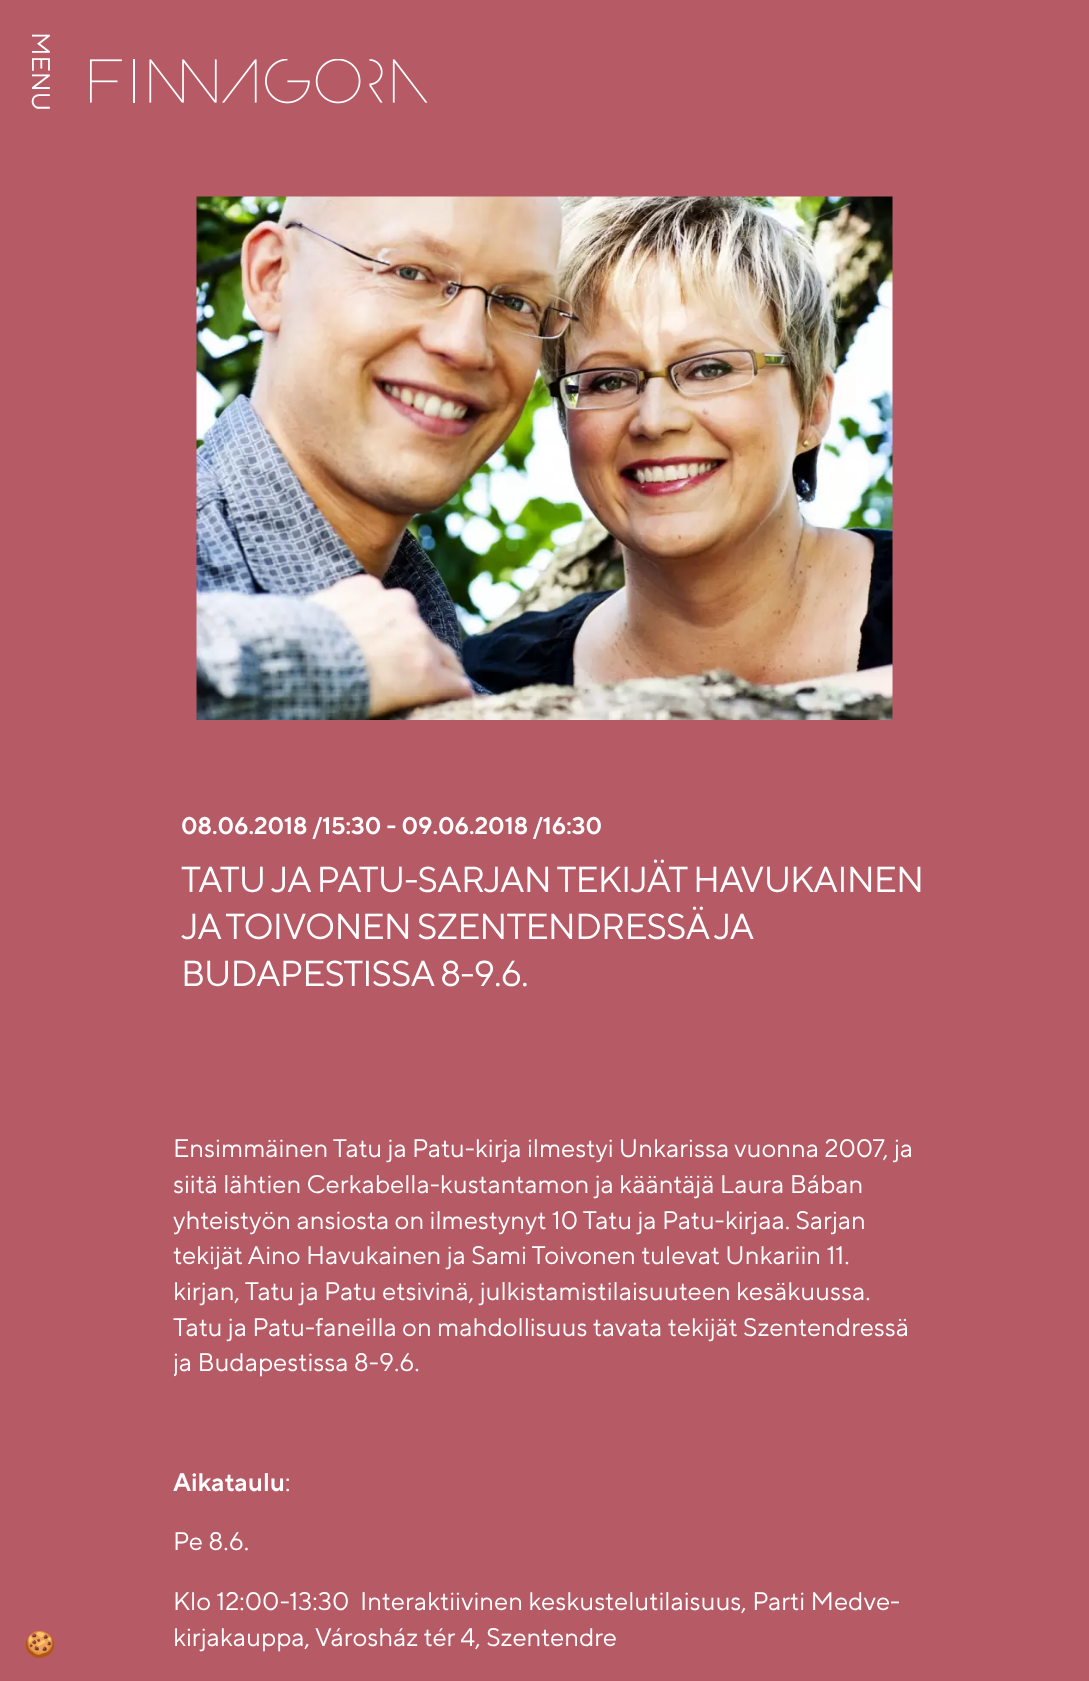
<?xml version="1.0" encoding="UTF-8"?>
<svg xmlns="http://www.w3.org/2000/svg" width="1089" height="1681">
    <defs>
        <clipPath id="clip1"><rect x="174" y="1133" width="743" height="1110"/></clipPath>
    </defs>
    <rect width="100%" height="100%" fill="#B65A65"/>
    <text x="32" y="32" transform="rotate(90 32 32)" font-family="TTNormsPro" font-size="25.5" fill="#FFFFFF">MENU</text>
    <image x="90" y="59" width="338" height="45" href="img_01.png"/>
    <text x="24" y="1653" font-family="Noto Color Emoji" font-size="25.5" fill="#000000">🍪</text>
    <image x="196" y="196" width="697" height="524" href="img_02.png"/>
    <text x="181" y="834" font-family="TT Norms Pro" font-size="24" font-weight="600" fill="#FFFFFF">08.06.2018 /15:30 - 09.06.2018 /16:30</text>
    <text font-family="TTNormsPro" font-size="36" letter-spacing="-0.9" fill="#FFFFFF">
        <tspan x="181" y="892">TATU JA PATU-SARJAN TEKIJÄT HAVUKAINEN</tspan>
        <tspan x="181" y="939" word-spacing="-0.5">JA TOIVONEN SZENTENDRESSÄ JA</tspan>
        <tspan x="181" y="986">BUDAPESTISSA 8-9.6.</tspan>
    </text>
    <text font-family="TTNormsPro" font-size="25.5" fill="#FFFFFF">
        <tspan x="173" y="1157">Ensimmäinen Tatu ja Patu-kirja ilmestyi Unkarissa vuonna 2007, ja</tspan>
        <tspan x="173" y="1193">siitä lähtien Cerkabella-kustantamon ja kääntäjä Laura Bában</tspan>
        <tspan x="173" y="1229">yhteistyön ansiosta on ilmestynyt 10 Tatu ja Patu-kirjaa. Sarjan</tspan>
        <tspan x="173" y="1264">tekijät Aino Havukainen ja Sami Toivonen tulevat Unkariin 11.</tspan>
        <tspan x="173" y="1300">kirjan, Tatu ja Patu etsivinä, julkistamistilaisuuteen kesäkuussa.</tspan>
        <tspan x="173" y="1336">Tatu ja Patu-faneilla on mahdollisuus tavata tekijät Szentendressä</tspan>
    </text>
    <g clip-path="url(#clip1)">
        <text x="173" y="1371" font-family="TTNormsPro" font-size="25.5" fill="#FFFFFF">ja Budapestissa 8-9.6.</text>
    </g>
    <text x="173" y="1491" font-family="TT Norms Pro" font-size="25.5" font-weight="600" fill="#FFFFFF">Aikataulu</text>
    <text x="285" y="1491" font-family="TTNormsPro" font-size="25.5" fill="#FFFFFF">:</text>
    <text x="173" y="1550" font-family="TTNormsPro" font-size="25.5" fill="#FFFFFF">Pe 8.6.</text>
    <text font-family="TTNormsPro" font-size="25.5" fill="#FFFFFF" xml:space="preserve"><tspan x="173" y="1610">Klo 12:00-13:30  Interaktiivinen keskustelutilaisuus, Parti Medve-</tspan><tspan x="173" y="1646">kirjakauppa, Városház tér 4, Szentendre</tspan></text>
</svg>
